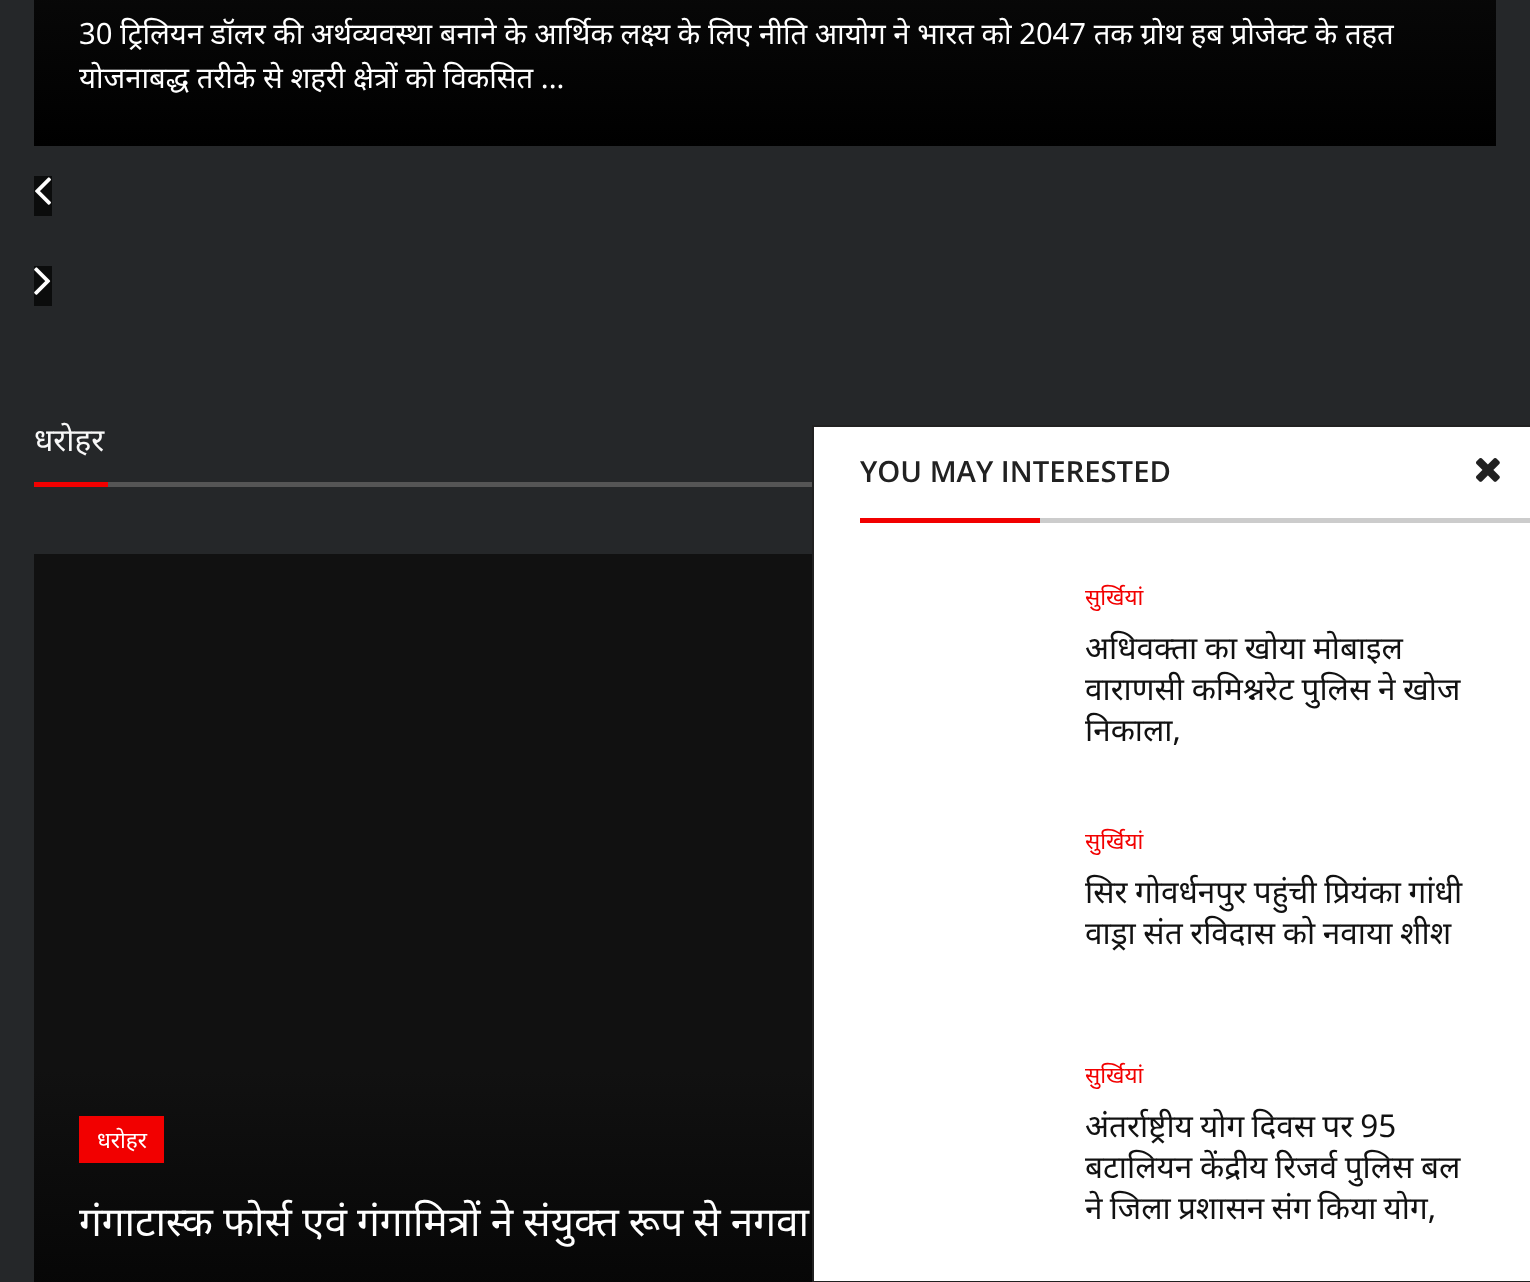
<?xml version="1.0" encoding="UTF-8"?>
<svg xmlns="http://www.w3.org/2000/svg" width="1530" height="1282">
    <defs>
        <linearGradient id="g1" gradientUnits="userSpaceOnUse" x1="34" y1="-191" x2="34" y2="146"><stop offset="0" stop-color="#111111"/><stop offset="1" stop-color="#000000"/></linearGradient>
        <linearGradient id="g2" gradientUnits="userSpaceOnUse" x1="34" y1="1071" x2="34" y2="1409"><stop offset="0" stop-color="#111111"/><stop offset="1" stop-color="#000000"/></linearGradient>
    </defs>
    <rect width="100%" height="100%" fill="#252729"/>
    <rect x="34" y="0" width="1462" height="146" fill="url(#g1)"/>
    <text font-family="Noto Sans" font-size="29.25" fill="#FFFFFF">
        <tspan x="79" y="44">30 ट्रिलियन डॉलर की अर्थव्यवस्था बनाने के आर्थिक लक्ष्य के लिए नीति आयोग ने भारत को 2047 तक ग्रोथ हब प्रोजेक्ट के तहत</tspan>
        <tspan x="79" y="88">योजनाबद्ध तरीके से शहरी क्षेत्रों को विकसित ...</tspan>
    </text>
    <rect x="34" y="176" width="18" height="40" fill="#0B0C0C"/>
    <image x="35" y="177" width="16" height="28" href="img_01.png"/>
    <rect x="34" y="266" width="18" height="40" fill="#0B0C0C"/>
    <image x="34" y="267" width="17" height="28" href="img_02.png"/>
    <rect x="34" y="482" width="74" height="5" fill="#F20000"/>
    <text x="34" y="451" font-family="Noto Sans" font-size="31.5" fill="#F8F8F8">धरोहर</text>
    <rect x="108" y="482" width="704" height="5" fill="#555555"/>
    <rect x="34" y="554" width="778" height="517" fill="#111111"/>
    <rect x="34" y="1071" width="778" height="211" fill="url(#g2)"/>
    <rect x="79" y="1116" width="85" height="47" fill="#F20000"/>
    <text x="97" y="1148" font-family="Noto Sans" font-size="22.5" fill="#FFFFFF">धरोहर</text>
    <text x="79" y="1236" word-spacing="-0.5" font-family="Noto Sans" font-size="40.5" fill="#FFFFFF">गंगाटास्क फोर्स एवं गंगामित्रों ने संयुक्त रूप से नगवा</text>
    <rect x="813" y="426" width="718" height="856" fill="#FFFFFF" stroke="#212121" stroke-width="2"/>
    <rect x="1040" y="518" width="490" height="5" fill="#CCCCCC"/>
    <text x="860" y="482" font-family="Open Sans" font-size="29.25" font-weight="600" fill="#212121">YOU MAY INTERESTED</text>
    <rect x="860" y="518" width="180" height="5" fill="#F20000"/>
    <image x="1476" y="458" width="24" height="24" href="img_03.png"/>
    <text x="1085" y="605" font-family="Noto Sans" font-size="22.5" fill="#F20000">सुर्खियां</text>
    <text font-family="Noto Sans" font-size="31.5" fill="#111111">
        <tspan x="1085" y="659" word-spacing="-0.5">अधिवक्ता का खोया मोबाइल</tspan>
        <tspan x="1085" y="700" word-spacing="-0.5">वाराणसी कमिश्नरेट पुलिस ने खोज</tspan>
        <tspan x="1085" y="741">निकाला,</tspan>
    </text>
    <text x="1085" y="849" font-family="Noto Sans" font-size="22.5" fill="#F20000">सुर्खियां</text>
    <text font-family="Noto Sans" font-size="31.5" fill="#111111">
        <tspan x="1085" y="903" word-spacing="-0.5">सिर गोवर्धनपुर पहुंची प्रियंका गांधी</tspan>
        <tspan x="1085" y="944" word-spacing="-0.5">वाड्रा संत रविदास को नवाया शीश</tspan>
    </text>
    <text x="1085" y="1083" font-family="Noto Sans" font-size="22.5" fill="#F20000">सुर्खियां</text>
    <text font-family="Noto Sans" font-size="31.5" fill="#111111">
        <tspan x="1085" y="1137" word-spacing="-1">अंतर्राष्ट्रीय योग दिवस पर 95</tspan>
        <tspan x="1085" y="1178" word-spacing="-0.5">बटालियन केंद्रीय रिजर्व पुलिस बल</tspan>
        <tspan x="1085" y="1219" word-spacing="-1">ने जिला प्रशासन संग किया योग,</tspan>
    </text>
</svg>
